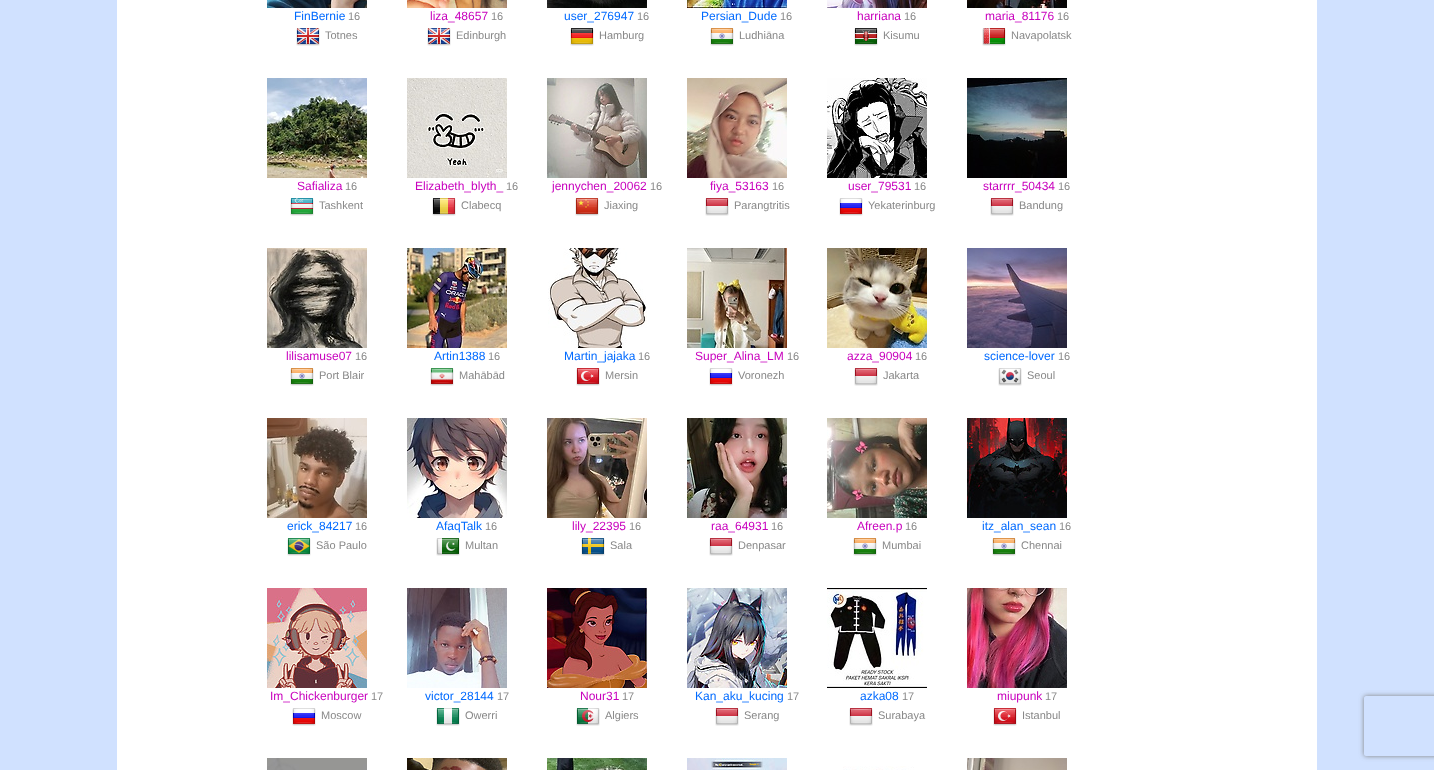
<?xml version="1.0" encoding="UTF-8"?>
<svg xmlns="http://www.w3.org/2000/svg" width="1434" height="770">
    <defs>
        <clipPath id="clip1"><path d="M 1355 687 H 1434 V 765 H 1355 Z M 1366 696 H 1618 C 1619 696 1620 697 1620 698 V 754 C 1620 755 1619 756 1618 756 H 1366 C 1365 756 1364 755 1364 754 V 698 C 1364 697 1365 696 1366 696 Z" clip-rule="evenodd"/></clipPath>
        <filter id="blur1" x="-50%" y="-200%" width="200%" height="500%"><feGaussianBlur stdDeviation="2.5"/></filter>
    </defs>
    <rect width="100%" height="100%" fill="#D0E1FF"/>
    <rect x="117" y="0" width="1200" height="770" fill="#FFFFFF"/>
    <image x="267" y="0" width="100" height="8" href="img_01.png"/>
    <text x="294" y="20" font-family="Liberation Sans" font-size="12" fill="#006AFF">FinBernie</text>
    <text x="348" y="20" font-family="Liberation Sans" font-size="11" fill="#888888">16</text>
    <image x="296" y="28" width="24" height="18" href="img_02.png"/>
    <text x="325" y="39" font-family="Liberation Sans" font-size="11" fill="#888888">Totnes</text>
    <image x="407" y="0" width="100" height="8" href="img_03.png"/>
    <text x="430" y="20" font-family="Liberation Sans" font-size="12" fill="#C800BD">liza_48657</text>
    <text x="491" y="20" font-family="Liberation Sans" font-size="11" fill="#888888">16</text>
    <image x="427" y="28" width="24" height="18" href="img_02.png"/>
    <text x="456" y="39" font-family="Liberation Sans" font-size="11" fill="#888888">Edinburgh</text>
    <image x="547" y="0" width="100" height="8" href="img_04.png"/>
    <text x="564" y="20" font-family="Liberation Sans" font-size="12" fill="#006AFF">user_276947</text>
    <text x="637" y="20" font-family="Liberation Sans" font-size="11" fill="#888888">16</text>
    <image x="570" y="28" width="24" height="18" href="img_05.png"/>
    <text x="599" y="39" font-family="Liberation Sans" font-size="11" fill="#888888">Hamburg</text>
    <image x="687" y="0" width="100" height="8" href="img_06.png"/>
    <text x="701" y="20" font-family="Liberation Sans" font-size="12" fill="#006AFF">Persian_Dude</text>
    <text x="780" y="20" font-family="Liberation Sans" font-size="11" fill="#888888">16</text>
    <image x="710" y="28" width="24" height="18" href="img_07.png"/>
    <text x="739" y="39" font-family="Liberation Sans" font-size="11" fill="#888888">Ludhiāna</text>
    <image x="827" y="0" width="100" height="8" href="img_08.png"/>
    <text x="857" y="20" font-family="Liberation Sans" font-size="12" fill="#C800BD">harriana</text>
    <text x="904" y="20" font-family="Liberation Sans" font-size="11" fill="#888888">16</text>
    <image x="854" y="28" width="24" height="18" href="img_09.png"/>
    <text x="883" y="39" font-family="Liberation Sans" font-size="11" fill="#888888">Kisumu</text>
    <image x="967" y="0" width="100" height="8" href="img_10.png"/>
    <text x="985" y="20" font-family="Liberation Sans" font-size="12" fill="#C800BD">maria_81176</text>
    <text x="1057" y="20" font-family="Liberation Sans" font-size="11" fill="#888888">16</text>
    <image x="982" y="28" width="24" height="18" href="img_11.png"/>
    <text x="1011" y="39" font-family="Liberation Sans" font-size="11" fill="#888888">Navapolatsk</text>
    <image x="267" y="78" width="100" height="100" href="img_12.png"/>
    <text x="297" y="190" font-family="Liberation Sans" font-size="12" fill="#C800BD">Safializa</text>
    <text x="345" y="190" font-family="Liberation Sans" font-size="11" fill="#888888">16</text>
    <image x="290" y="198" width="24" height="18" href="img_13.png"/>
    <text x="319" y="209" font-family="Liberation Sans" font-size="11" fill="#888888">Tashkent</text>
    <image x="407" y="78" width="100" height="100" href="img_14.png"/>
    <text x="415" y="190" font-family="Liberation Sans" font-size="12" fill="#C800BD">Elizabeth_blyth_</text>
    <text x="506" y="190" font-family="Liberation Sans" font-size="11" fill="#888888">16</text>
    <image x="432" y="198" width="24" height="18" href="img_15.png"/>
    <text x="461" y="209" font-family="Liberation Sans" font-size="11" fill="#888888">Clabecq</text>
    <image x="547" y="78" width="100" height="100" href="img_16.png"/>
    <text x="552" y="190" font-family="Liberation Sans" font-size="12" fill="#C800BD">jennychen_20062</text>
    <text x="650" y="190" font-family="Liberation Sans" font-size="11" fill="#888888">16</text>
    <image x="575" y="198" width="24" height="18" href="img_17.png"/>
    <text x="604" y="209" font-family="Liberation Sans" font-size="11" fill="#888888">Jiaxing</text>
    <image x="687" y="78" width="100" height="100" href="img_18.png"/>
    <text x="710" y="190" font-family="Liberation Sans" font-size="12" fill="#C800BD">fiya_53163</text>
    <text x="772" y="190" font-family="Liberation Sans" font-size="11" fill="#888888">16</text>
    <image x="705" y="198" width="24" height="18" href="img_19.png"/>
    <text x="734" y="209" font-family="Liberation Sans" font-size="11" fill="#888888">Parangtritis</text>
    <image x="827" y="78" width="100" height="100" href="img_20.png"/>
    <text x="848" y="190" font-family="Liberation Sans" font-size="12" fill="#C800BD">user_79531</text>
    <text x="914" y="190" font-family="Liberation Sans" font-size="11" fill="#888888">16</text>
    <image x="839" y="198" width="24" height="18" href="img_21.png"/>
    <text x="868" y="209" font-family="Liberation Sans" font-size="11" fill="#888888">Yekaterinburg</text>
    <image x="967" y="78" width="100" height="100" href="img_22.png"/>
    <text x="983" y="190" font-family="Liberation Sans" font-size="12" fill="#C800BD">starrrr_50434</text>
    <text x="1058" y="190" font-family="Liberation Sans" font-size="11" fill="#888888">16</text>
    <image x="990" y="198" width="24" height="18" href="img_19.png"/>
    <text x="1019" y="209" font-family="Liberation Sans" font-size="11" fill="#888888">Bandung</text>
    <image x="267" y="248" width="100" height="100" href="img_23.png"/>
    <text x="286" y="360" font-family="Liberation Sans" font-size="12" fill="#C800BD">lilisamuse07</text>
    <text x="355" y="360" font-family="Liberation Sans" font-size="11" fill="#888888">16</text>
    <image x="290" y="368" width="24" height="18" href="img_07.png"/>
    <text x="319" y="379" font-family="Liberation Sans" font-size="11" fill="#888888">Port Blair</text>
    <image x="407" y="248" width="100" height="100" href="img_24.png"/>
    <text x="434" y="360" font-family="Liberation Sans" font-size="12" fill="#006AFF">Artin1388</text>
    <text x="488" y="360" font-family="Liberation Sans" font-size="11" fill="#888888">16</text>
    <image x="430" y="368" width="24" height="18" href="img_25.png"/>
    <text x="459" y="379" font-family="Liberation Sans" font-size="11" fill="#888888">Mahābād</text>
    <image x="548" y="248" width="99" height="100" href="img_26.png"/>
    <text x="564" y="360" font-family="Liberation Sans" font-size="12" fill="#006AFF">Martin_jajaka</text>
    <text x="638" y="360" font-family="Liberation Sans" font-size="11" fill="#888888">16</text>
    <image x="576" y="368" width="24" height="18" href="img_27.png"/>
    <text x="605" y="379" font-family="Liberation Sans" font-size="11" fill="#888888">Mersin</text>
    <image x="687" y="248" width="100" height="100" href="img_28.png"/>
    <text x="695" y="360" font-family="Liberation Sans" font-size="12" fill="#C800BD">Super_Alina_LM</text>
    <text x="787" y="360" font-family="Liberation Sans" font-size="11" fill="#888888">16</text>
    <image x="709" y="368" width="24" height="18" href="img_21.png"/>
    <text x="738" y="379" font-family="Liberation Sans" font-size="11" fill="#888888">Voronezh</text>
    <image x="827" y="248" width="100" height="100" href="img_29.png"/>
    <text x="847" y="360" font-family="Liberation Sans" font-size="12" fill="#C800BD">azza_90904</text>
    <text x="915" y="360" font-family="Liberation Sans" font-size="11" fill="#888888">16</text>
    <image x="854" y="368" width="24" height="18" href="img_19.png"/>
    <text x="883" y="379" font-family="Liberation Sans" font-size="11" fill="#888888">Jakarta</text>
    <image x="967" y="248" width="100" height="100" href="img_30.png"/>
    <text x="984" y="360" font-family="Liberation Sans" font-size="12" fill="#006AFF">science-lover</text>
    <text x="1058" y="360" font-family="Liberation Sans" font-size="11" fill="#888888">16</text>
    <image x="998" y="368" width="24" height="18" href="img_31.png"/>
    <text x="1027" y="379" font-family="Liberation Sans" font-size="11" fill="#888888">Seoul</text>
    <image x="267" y="418" width="100" height="100" href="img_32.png"/>
    <text x="287" y="530" font-family="Liberation Sans" font-size="12" fill="#006AFF">erick_84217</text>
    <text x="355" y="530" font-family="Liberation Sans" font-size="11" fill="#888888">16</text>
    <image x="287" y="538" width="24" height="18" href="img_33.png"/>
    <text x="316" y="549" font-family="Liberation Sans" font-size="11" fill="#888888">São Paulo</text>
    <image x="407" y="418" width="100" height="100" href="img_34.png"/>
    <text x="436" y="530" font-family="Liberation Sans" font-size="12" fill="#006AFF">AfaqTalk</text>
    <text x="485" y="530" font-family="Liberation Sans" font-size="11" fill="#888888">16</text>
    <image x="436" y="538" width="24" height="18" href="img_35.png"/>
    <text x="465" y="549" font-family="Liberation Sans" font-size="11" fill="#888888">Multan</text>
    <image x="547" y="418" width="100" height="100" href="img_36.png"/>
    <text x="572" y="530" font-family="Liberation Sans" font-size="12" fill="#C800BD">lily_22395</text>
    <text x="629" y="530" font-family="Liberation Sans" font-size="11" fill="#888888">16</text>
    <image x="581" y="538" width="24" height="18" href="img_37.png"/>
    <text x="610" y="549" font-family="Liberation Sans" font-size="11" fill="#888888">Sala</text>
    <image x="687" y="418" width="100" height="100" href="img_38.png"/>
    <text x="711" y="530" font-family="Liberation Sans" font-size="12" fill="#C800BD">raa_64931</text>
    <text x="771" y="530" font-family="Liberation Sans" font-size="11" fill="#888888">16</text>
    <image x="709" y="538" width="24" height="18" href="img_19.png"/>
    <text x="738" y="549" font-family="Liberation Sans" font-size="11" fill="#888888">Denpasar</text>
    <image x="827" y="418" width="100" height="100" href="img_39.png"/>
    <text x="857" y="530" font-family="Liberation Sans" font-size="12" fill="#C800BD">Afreen.p</text>
    <text x="905" y="530" font-family="Liberation Sans" font-size="11" fill="#888888">16</text>
    <image x="853" y="538" width="24" height="18" href="img_07.png"/>
    <text x="882" y="549" font-family="Liberation Sans" font-size="11" fill="#888888">Mumbai</text>
    <image x="967" y="418" width="100" height="100" href="img_40.png"/>
    <text x="982" y="530" font-family="Liberation Sans" font-size="12" fill="#006AFF">itz_alan_sean</text>
    <text x="1059" y="530" font-family="Liberation Sans" font-size="11" fill="#888888">16</text>
    <image x="992" y="538" width="24" height="18" href="img_07.png"/>
    <text x="1021" y="549" font-family="Liberation Sans" font-size="11" fill="#888888">Chennai</text>
    <image x="267" y="588" width="100" height="100" href="img_41.png"/>
    <text x="270" y="700" font-family="Liberation Sans" font-size="12" fill="#C800BD">Im_Chickenburger</text>
    <text x="371" y="700" font-family="Liberation Sans" font-size="11" fill="#888888">17</text>
    <image x="292" y="708" width="24" height="18" href="img_21.png"/>
    <text x="321" y="719" font-family="Liberation Sans" font-size="11" fill="#888888">Moscow</text>
    <image x="407" y="588" width="100" height="100" href="img_42.png"/>
    <text x="425" y="700" font-family="Liberation Sans" font-size="12" fill="#006AFF">victor_28144</text>
    <text x="497" y="700" font-family="Liberation Sans" font-size="11" fill="#888888">17</text>
    <image x="436" y="708" width="24" height="18" href="img_43.png"/>
    <text x="465" y="719" font-family="Liberation Sans" font-size="11" fill="#888888">Owerri</text>
    <image x="547" y="588" width="100" height="100" href="img_44.png"/>
    <text x="580" y="700" font-family="Liberation Sans" font-size="12" fill="#C800BD">Nour31</text>
    <text x="622" y="700" font-family="Liberation Sans" font-size="11" fill="#888888">17</text>
    <image x="576" y="708" width="24" height="18" href="img_45.png"/>
    <text x="605" y="719" font-family="Liberation Sans" font-size="11" fill="#888888">Algiers</text>
    <image x="687" y="588" width="100" height="100" href="img_46.png"/>
    <text x="695" y="700" font-family="Liberation Sans" font-size="12" fill="#006AFF">Kan_aku_kucing</text>
    <text x="787" y="700" font-family="Liberation Sans" font-size="11" fill="#888888">17</text>
    <image x="715" y="708" width="24" height="18" href="img_19.png"/>
    <text x="744" y="719" font-family="Liberation Sans" font-size="11" fill="#888888">Serang</text>
    <image x="827" y="588" width="100" height="100" href="img_47.png"/>
    <text x="860" y="700" font-family="Liberation Sans" font-size="12" fill="#006AFF">azka08</text>
    <text x="902" y="700" font-family="Liberation Sans" font-size="11" fill="#888888">17</text>
    <image x="849" y="708" width="24" height="18" href="img_19.png"/>
    <text x="878" y="719" font-family="Liberation Sans" font-size="11" fill="#888888">Surabaya</text>
    <image x="967" y="588" width="100" height="100" href="img_48.png"/>
    <text x="997" y="700" font-family="Liberation Sans" font-size="12" fill="#C800BD">miupunk</text>
    <text x="1045" y="700" font-family="Liberation Sans" font-size="11" fill="#888888">17</text>
    <image x="993" y="708" width="24" height="18" href="img_27.png"/>
    <text x="1022" y="719" font-family="Liberation Sans" font-size="11" fill="#888888">Istanbul</text>
    <image x="267" y="758" width="100" height="12" href="img_49.png"/>
    <image x="407" y="758" width="100" height="12" href="img_50.png"/>
    <image x="547" y="758" width="100" height="12" href="img_51.png"/>
    <image x="687" y="758" width="100" height="12" href="img_52.png"/>
    <image x="843" y="766" width="71" height="4" href="img_53.png"/>
    <image x="967" y="758" width="100" height="12" href="img_54.png"/>
    <g clip-path="url(#clip1)">
        <rect x="1364" y="696" width="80" height="60" rx="2" fill="#808080" filter="url(#blur1)"/>
    </g>
</svg>
